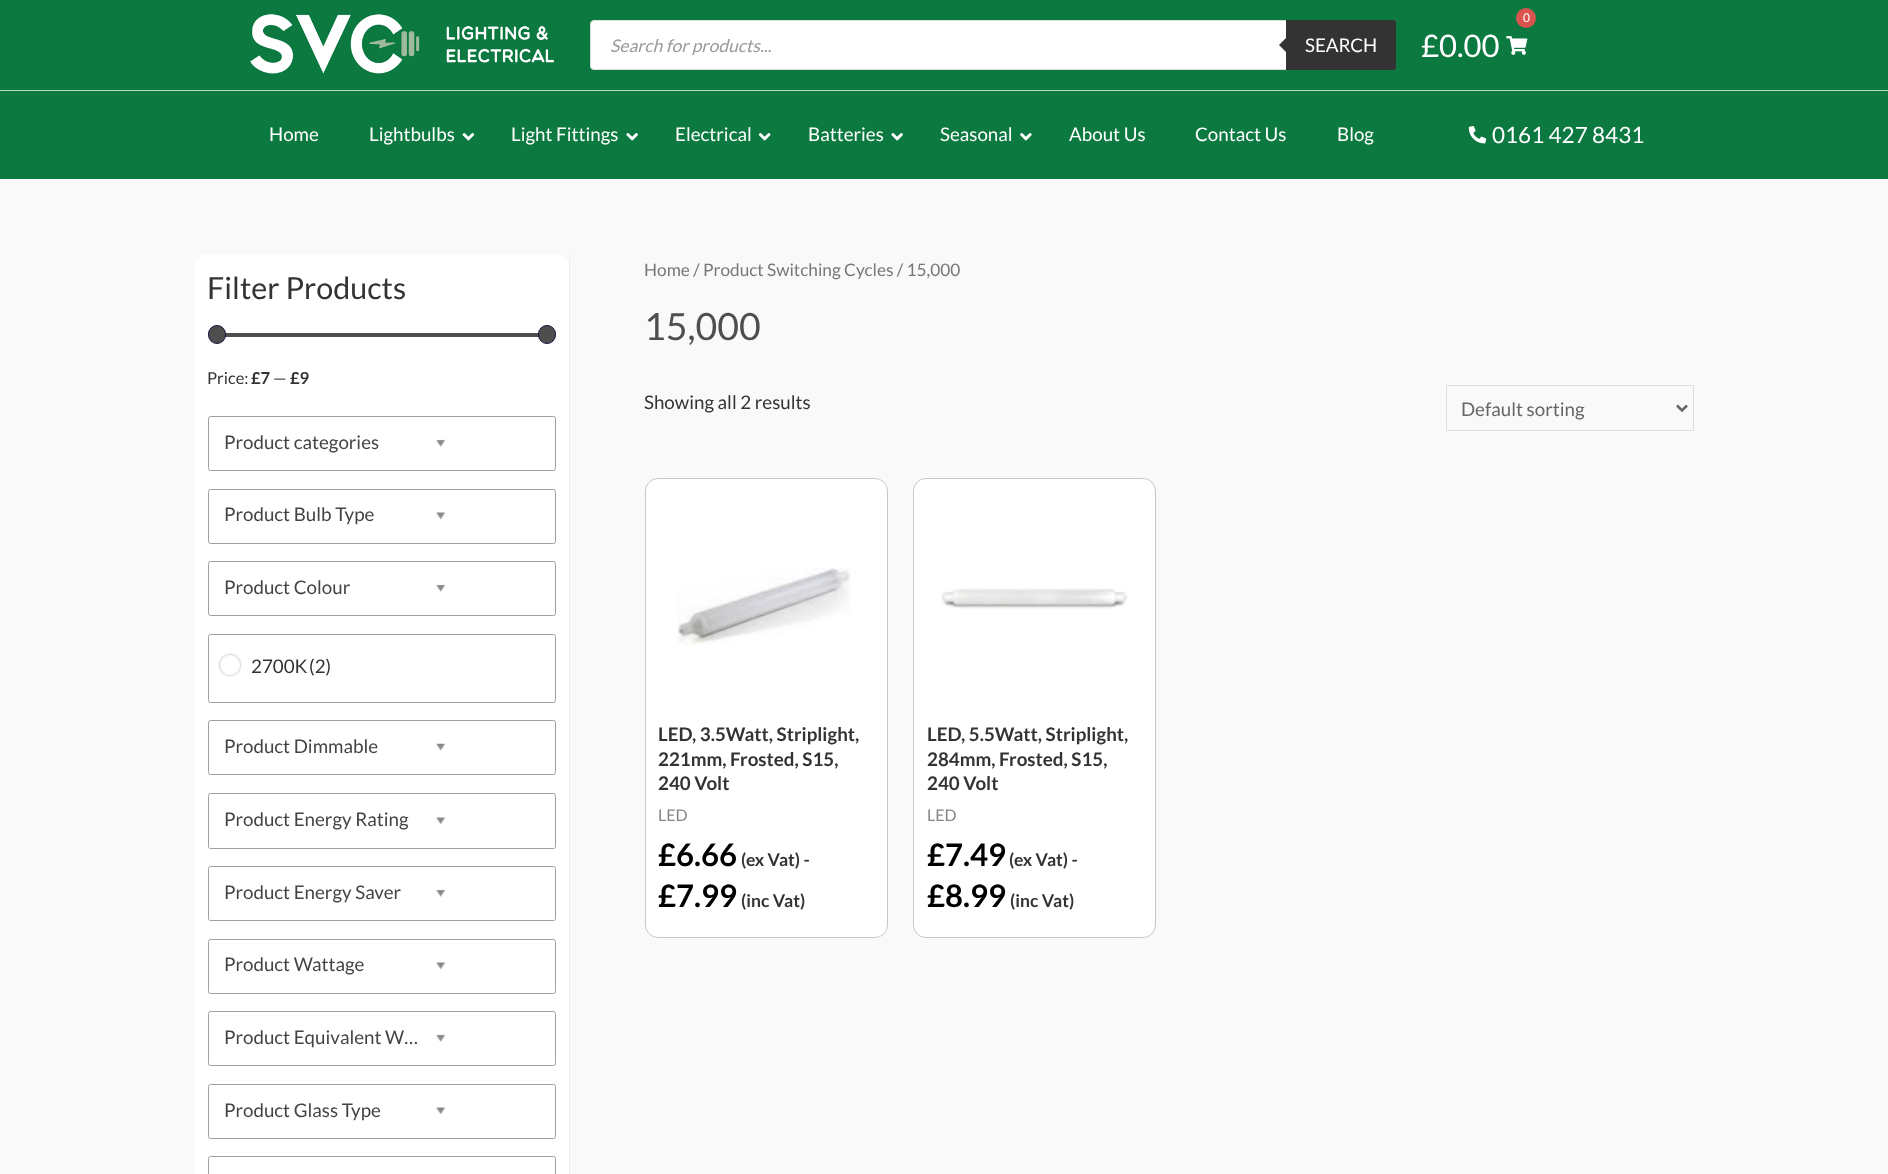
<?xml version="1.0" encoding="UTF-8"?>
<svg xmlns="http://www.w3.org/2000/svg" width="1888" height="1174">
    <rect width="100%" height="100%" fill="#F9F9F9"/>
    <rect x="0" y="0" width="1888" height="90" fill="#0B7940"/>
    <rect x="0" y="90" width="1888" height="1" fill="#B6D7C6"/>
    <image x="250" y="14" width="304" height="60" href="img_01.png"/>
    <rect x="590.5" y="20.5" width="805" height="49" rx="3.5" fill="#FFFFFF" stroke="#DDDDDD"/>
    <text x="610" y="52" font-family="Lato" font-size="17.5" font-style="italic" fill="#999999">Search for products...</text>
    <path d="M 1286 20 H 1393.5 C 1395 20 1396 21 1396 22.5 V 67.5 C 1396 69 1395 70 1393.5 70 H 1286 Z" fill="#333333"/>
    <path d="M 1289 35 V 55 L 1279 45 Z" fill="#333333"/>
    <text x="1305" y="52" font-family="Lato" font-size="18.75" fill="#FFFFFF">SEARCH</text>
    <circle cx="1526" cy="18" r="10" fill="#D9534F"/>
    <text x="1523" y="22" font-family="Lato" font-size="12" fill="#FFFFFF">0</text>
    <text x="1421" y="57" font-family="Lato" font-size="31" fill="#FFFFFF">£0.00</text>
    <image x="1506" y="36" width="22" height="19" href="img_02.png"/>
    <rect x="0" y="91" width="1888" height="88" fill="#0B7940"/>
    <text x="269" y="141" font-family="Lato" font-size="18.75" fill="#FFFFFF">Home</text>
    <text x="369" y="141" font-family="Lato" font-size="18.75" fill="#FFFFFF">Lightbulbs</text>
    <image x="462" y="133" width="13" height="8" href="img_03.png"/>
    <text x="511" y="141" font-family="Lato" font-size="18.75" fill="#FFFFFF">Light Fittings</text>
    <image x="626" y="133" width="12" height="8" href="img_04.png"/>
    <text x="675" y="141" font-family="Lato" font-size="18.75" fill="#FFFFFF">Electrical</text>
    <image x="758" y="133" width="13" height="8" href="img_05.png"/>
    <text x="808" y="141" font-family="Lato" font-size="18.75" fill="#FFFFFF">Batteries</text>
    <image x="891" y="133" width="12" height="8" href="img_04.png"/>
    <text x="940" y="141" font-family="Lato" font-size="18.75" fill="#FFFFFF">Seasonal</text>
    <image x="1020" y="133" width="12" height="8" href="img_06.png"/>
    <text x="1069" y="141" font-family="Lato" font-size="18.75" fill="#FFFFFF">About Us</text>
    <text x="1195" y="141" font-family="Lato" font-size="18.75" fill="#FFFFFF">Contact Us</text>
    <text x="1337" y="141" font-family="Lato" font-size="18.75" fill="#FFFFFF">Blog</text>
    <image x="1468" y="126" width="19" height="18" href="img_07.png"/>
    <text x="1492" y="143" font-family="Lato" font-size="22.5" fill="#FFFFFF">0161 427 8431</text>
    <path d="M 208 254 H 557 C 564 254 570 260 570 267 V 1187 H 195 V 267 C 195 260 201 254 208 254 Z" fill="#FFFFFF"/>
    <rect x="569" y="254" width="1" height="920" fill="#EEEEEE"/>
    <text x="207" y="299" font-family="Lato" font-size="30.5" fill="#333333">Filter Products</text>
    <rect x="225" y="333" width="321" height="4" fill="#4E4E4E"/>
    <rect x="208.5" y="325.5" width="17" height="18" rx="8.5" fill="#4E4E4E" stroke="#141741"/>
    <rect x="538.5" y="325.5" width="17" height="18" rx="8.5" fill="#4E4E4E" stroke="#141741"/>
    <text x="207" y="384" font-family="Lato" font-size="16.5" fill="#333333">Price:</text>
    <text x="251" y="384" font-family="Lato" font-size="16.5" font-weight="700" fill="#333333">£7</text>
    <text x="273" y="384" font-family="Lato" font-size="16.5" fill="#333333">—</text>
    <text x="290" y="384" font-family="Lato" font-size="16.5" font-weight="700" fill="#333333">£9</text>
    <rect x="208.5" y="416.5" width="347" height="54" rx="2" fill="none" stroke="#A1A1A1"/>
    <text x="224" y="449" font-family="Lato" font-size="18.75" fill="#444444">Product categories</text>
    <image x="436" y="439" width="10" height="8" href="img_08.png"/>
    <rect x="208.5" y="489.5" width="347" height="54" rx="2" fill="none" stroke="#A1A1A1"/>
    <text x="224" y="521" font-family="Lato" font-size="18.75" fill="#444444">Product Bulb Type</text>
    <image x="436" y="512" width="10" height="8" href="img_09.png"/>
    <rect x="208.5" y="561.5" width="347" height="54" rx="2" fill="none" stroke="#A1A1A1"/>
    <text x="224" y="594" font-family="Lato" font-size="18.75" fill="#444444">Product Colour</text>
    <image x="436" y="584" width="10" height="8" href="img_08.png"/>
    <rect x="208.5" y="634.5" width="347" height="68" rx="2" fill="none" stroke="#A1A1A1"/>
    <image x="218" y="653" width="24" height="24" href="img_10.png"/>
    <text x="251" y="673" font-family="Lato" font-size="18.75" fill="#333333">2700K</text>
    <text x="309" y="673" font-family="Lato" font-size="18.75" fill="#333333">(2)</text>
    <rect x="208.5" y="720.5" width="347" height="54" rx="2" fill="none" stroke="#A1A1A1"/>
    <text x="224" y="753" font-family="Lato" font-size="18.75" fill="#444444">Product Dimmable</text>
    <image x="436" y="743" width="10" height="8" href="img_11.png"/>
    <rect x="208.5" y="793.5" width="347" height="55" rx="2" fill="none" stroke="#A1A1A1"/>
    <text x="224" y="826" font-family="Lato" font-size="18.75" fill="#444444">Product Energy Rating</text>
    <image x="436" y="817" width="10" height="8" href="img_09.png"/>
    <rect x="208.5" y="866.5" width="347" height="54" rx="2" fill="none" stroke="#A1A1A1"/>
    <text x="224" y="899" font-family="Lato" font-size="18.75" fill="#444444">Product Energy Saver</text>
    <image x="436" y="889" width="10" height="8" href="img_08.png"/>
    <rect x="208.5" y="939.5" width="347" height="54" rx="2" fill="none" stroke="#A1A1A1"/>
    <text x="224" y="971" font-family="Lato" font-size="18.75" fill="#444444">Product Wattage</text>
    <image x="436" y="962" width="10" height="8" href="img_09.png"/>
    <rect x="208.5" y="1011.5" width="347" height="54" rx="2" fill="none" stroke="#A1A1A1"/>
    <text x="224" y="1044" font-family="Lato" font-size="18.75" fill="#444444">Product Equivalent W…</text>
    <image x="436" y="1034" width="10" height="8" href="img_08.png"/>
    <rect x="208.5" y="1084.5" width="347" height="54" rx="2" fill="none" stroke="#A1A1A1"/>
    <text x="224" y="1117" font-family="Lato" font-size="18.75" fill="#444444">Product Glass Type</text>
    <image x="436" y="1107" width="10" height="8" href="img_09.png"/>
    <rect x="208.5" y="1156.5" width="347" height="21" rx="2" fill="none" stroke="#A1A1A1"/>
    <text x="644" y="276" font-family="Lato" font-size="17.25" fill="#777777">Home / Product Switching Cycles / 15,000</text>
    <text x="644" y="340" font-family="Lato" font-size="37.5" fill="#4E4E4E">15,000</text>
    <text x="644" y="409" font-family="Lato" font-size="18.75" fill="#333333">Showing all 2 results</text>
    <rect x="1446.5" y="385.5" width="247" height="45" fill="none" stroke="#DDDDDD"/>
    <path d="M 1677 405.5 L 1682 410.5 L 1687 405.5" fill="none" stroke="#666666" stroke-width="2.5"/>
    <text x="1461" y="416" font-family="Lato" font-size="18.75" fill="#666666">Default sorting</text>
    <rect x="645" y="478" width="243" height="460" rx="13" fill="#FFFFFF"/>
    <rect x="645.5" y="478.5" width="242" height="459" rx="12.5" fill="none" stroke="#000000" stroke-opacity="0.22"/>
    <image x="677" y="568" width="174" height="77" href="img_12.png"/>
    <text font-family="Lato" font-size="18.75" font-weight="700" fill="#333333">
        <tspan x="658" y="741">LED, 3.5Watt, Striplight,</tspan>
        <tspan x="658" y="766">221mm, Frosted, S15,</tspan>
        <tspan x="658" y="790">240 Volt</tspan>
    </text>
    <text x="658" y="821" font-family="Lato" font-size="16" fill="#858585">LED</text>
    <text x="658" y="866" font-family="Lato" font-size="31" font-weight="700" fill="#000000">£6.66</text>
    <text x="741" y="866" font-family="Lato" font-size="17.5" font-weight="700" fill="#333333">(ex Vat) -</text>
    <text x="658" y="907" font-family="Lato" font-size="31" font-weight="700" fill="#000000">£7.99</text>
    <text x="741" y="907" font-family="Lato" font-size="17.5" font-weight="700" fill="#333333">(inc Vat)</text>
    <rect x="913" y="478" width="243" height="460" rx="13" fill="#FFFFFF"/>
    <rect x="913.5" y="478.5" width="242" height="459" rx="12.5" fill="none" stroke="#000000" stroke-opacity="0.22"/>
    <image x="941" y="588" width="187" height="21" href="img_13.png"/>
    <text font-family="Lato" font-size="18.75" font-weight="700" fill="#333333">
        <tspan x="927" y="741">LED, 5.5Watt, Striplight,</tspan>
        <tspan x="927" y="766">284mm, Frosted, S15,</tspan>
        <tspan x="927" y="790">240 Volt</tspan>
    </text>
    <text x="927" y="821" font-family="Lato" font-size="16" fill="#858585">LED</text>
    <text x="927" y="866" font-family="Lato" font-size="31" font-weight="700" fill="#000000">£7.49</text>
    <text x="1009" y="866" font-family="Lato" font-size="17.5" font-weight="700" fill="#333333">(ex Vat) -</text>
    <text x="927" y="907" font-family="Lato" font-size="31" font-weight="700" fill="#000000">£8.99</text>
    <text x="1010" y="907" font-family="Lato" font-size="17.5" font-weight="700" fill="#333333">(inc Vat)</text>
</svg>
